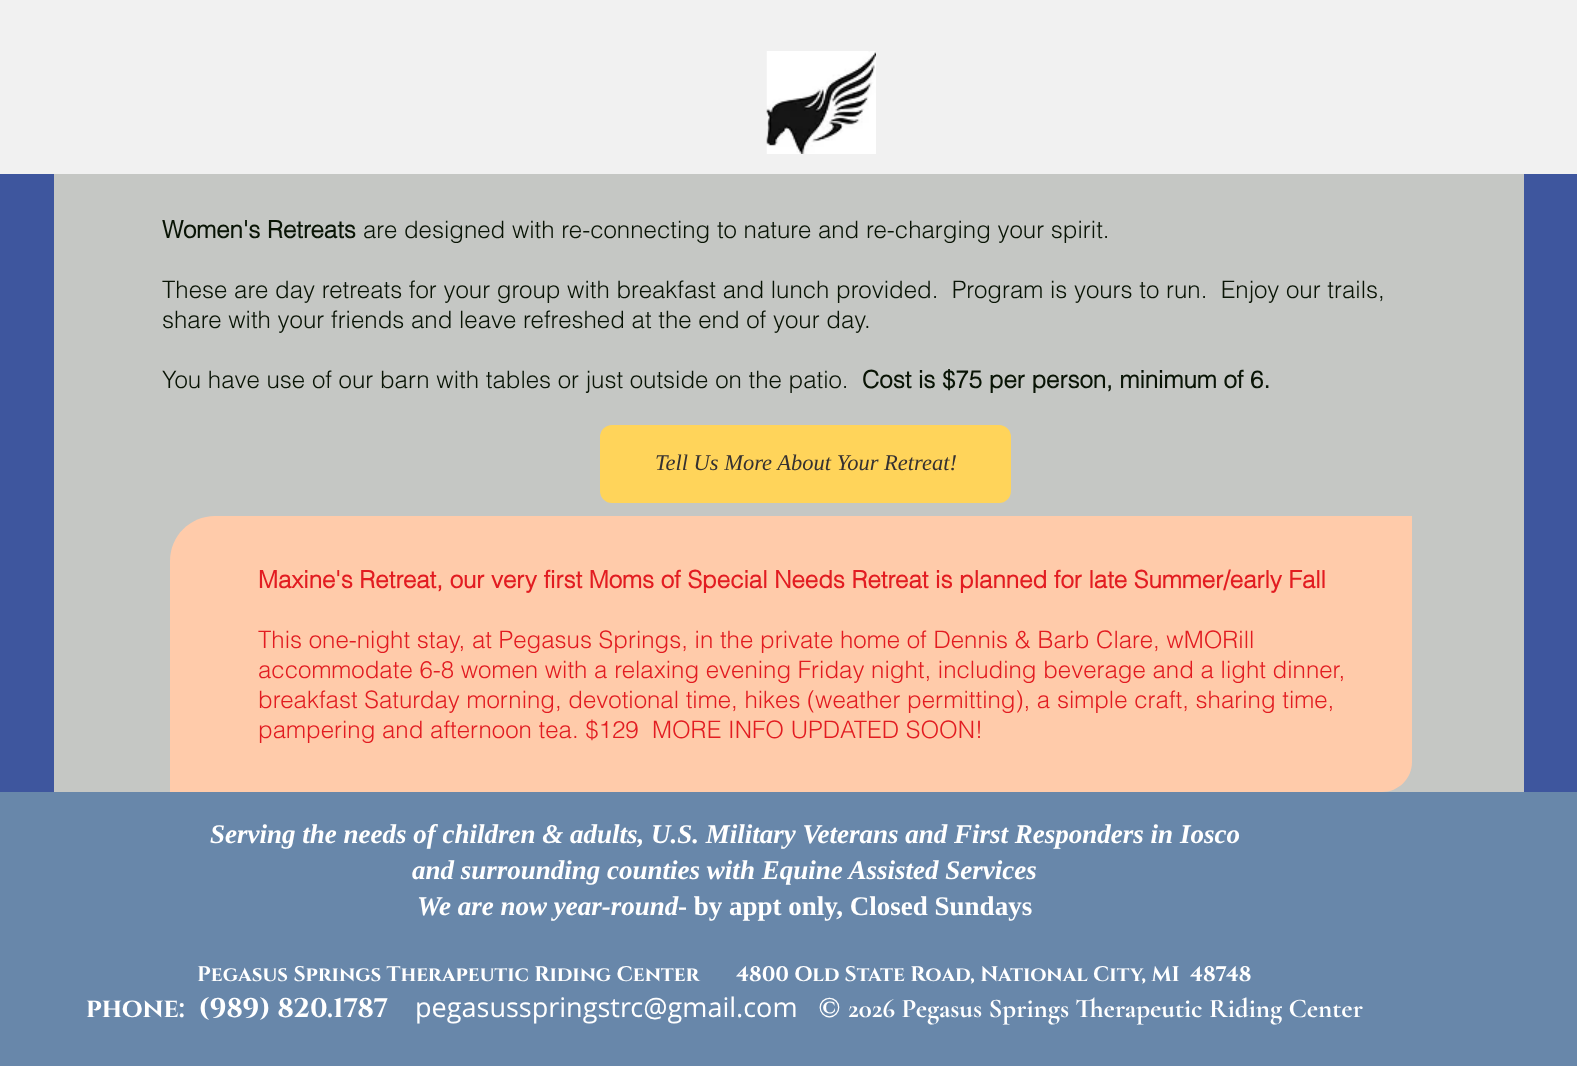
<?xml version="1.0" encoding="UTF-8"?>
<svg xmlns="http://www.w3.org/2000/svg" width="1577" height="1066">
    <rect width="100%" height="100%" fill="#3E569E"/>
    <rect x="54" y="174" width="1470" height="618" fill="#C5C7C4"/>
    <rect x="0" y="0" width="1577" height="174" fill="#F1F1F1"/>
    <image x="766" y="51" width="110" height="103" href="img_01.png"/>
    <text x="162" y="238" font-family="helvetica" font-size="24" font-weight="700" fill="#091405">Women's Retreats</text>
    <text x="363" y="238" font-family="helvetica" font-size="24" font-weight="300" fill="#091405">are designed with re-connecting to nature and re-charging your spirit.</text>
    <text font-family="helvetica" font-size="24" font-weight="300" fill="#091405" xml:space="preserve"><tspan x="162" y="298">These are day retreats for your group with breakfast and lunch provided.  Program is yours to run.  Enjoy our trails,</tspan><tspan x="162" y="328">share with your friends and leave refreshed at the end of your day.</tspan></text>
    <text x="162" y="388" font-family="helvetica" font-size="24" font-weight="300" fill="#091405">You have use of our barn with tables or just outside on the patio.</text>
    <text x="862" y="388" font-family="helvetica" font-size="24" font-weight="700" fill="#091405">Cost is $75 per person, minimum of 6.</text>
    <rect x="600" y="425" width="411" height="78" rx="12" fill="#FFD45A"/>
    <text x="655" y="470" font-family="Liberation Serif" font-size="22.5" font-style="italic" fill="#353131">Tell Us More About Your Retreat!</text>
    <path d="M 215 516 H 1412 V 762 C 1412 778.5 1398.5 792 1382 792 H 170 V 561 C 170 536 190 516 215 516 Z" fill="#FFCBAA"/>
    <text x="258" y="588" font-family="helvetica" font-size="24" font-weight="700" fill="#E21C21">Maxine's Retreat, our very first Moms of Special Needs Retreat is planned for late Summer/early Fall</text>
    <text font-family="helvetica" font-size="24" font-weight="300" fill="#E21C21" xml:space="preserve"><tspan x="258" y="648">This one-night stay, at Pegasus Springs, in the private home of Dennis &amp; Barb Clare, wMORill</tspan><tspan x="258" y="678">accommodate 6-8 women with a relaxing evening Friday night, including beverage and a light dinner,</tspan><tspan x="258" y="708">breakfast Saturday morning, devotional time, hikes (weather permitting), a simple craft, sharing time,</tspan><tspan x="258" y="738">pampering and afternoon tea. $129  MORE INFO UPDATED SOON!</tspan></text>
    <rect x="0" y="792" width="1577" height="274" fill="#6887AA"/>
    <text x="210" y="843" font-family="Liberation Serif" font-size="27" font-weight="700" font-style="italic" fill="#FFFFFF">Serving the needs of children &amp; adults, U.S. Military Veterans and First Responders in Iosco</text>
    <text x="412" y="879" font-family="Liberation Serif" font-size="27" font-weight="700" font-style="italic" fill="#FFFFFF">and surrounding counties with Equine Assisted Services</text>
    <text x="417" y="915" font-family="Liberation Serif" font-size="27" font-weight="700" font-style="italic" fill="#FFFFFF">We are now year-round</text>
    <text x="678" y="915" font-family="Liberation Serif" font-size="27" font-weight="700" fill="#FFFFFF">- by appt only, Closed Sundays</text>
    <text x="197" y="981" font-family="Cinzel" font-size="21" font-weight="700" fill="#FFFFFF">Pegasus Springs Therapeutic Riding Center</text>
    <text x="736" y="981" font-family="Cinzel" font-size="21" font-weight="700" fill="#FFFFFF" xml:space="preserve">4800 Old State Road, National City, MI  48748</text>
    <text x="86" y="1017" font-family="Cinzel" font-size="27" font-weight="700" fill="#FFFFFF" xml:space="preserve">phone:  (989) 820.1787</text>
    <text x="415" y="1017" font-family="Open Sans" font-size="27" fill="#FFFFFF">pegasusspringstrc@gmail.com</text>
    <text x="818" y="1017" font-family="Cinzel" font-size="27" font-weight="700" fill="#FFFFFF">©</text>
    <text x="848" y="1017" font-family="Cormorant Garamond" font-size="27" font-weight="700" fill="#FFFFFF">2026 Pegasus Springs Therapeutic Riding Center</text>
</svg>
